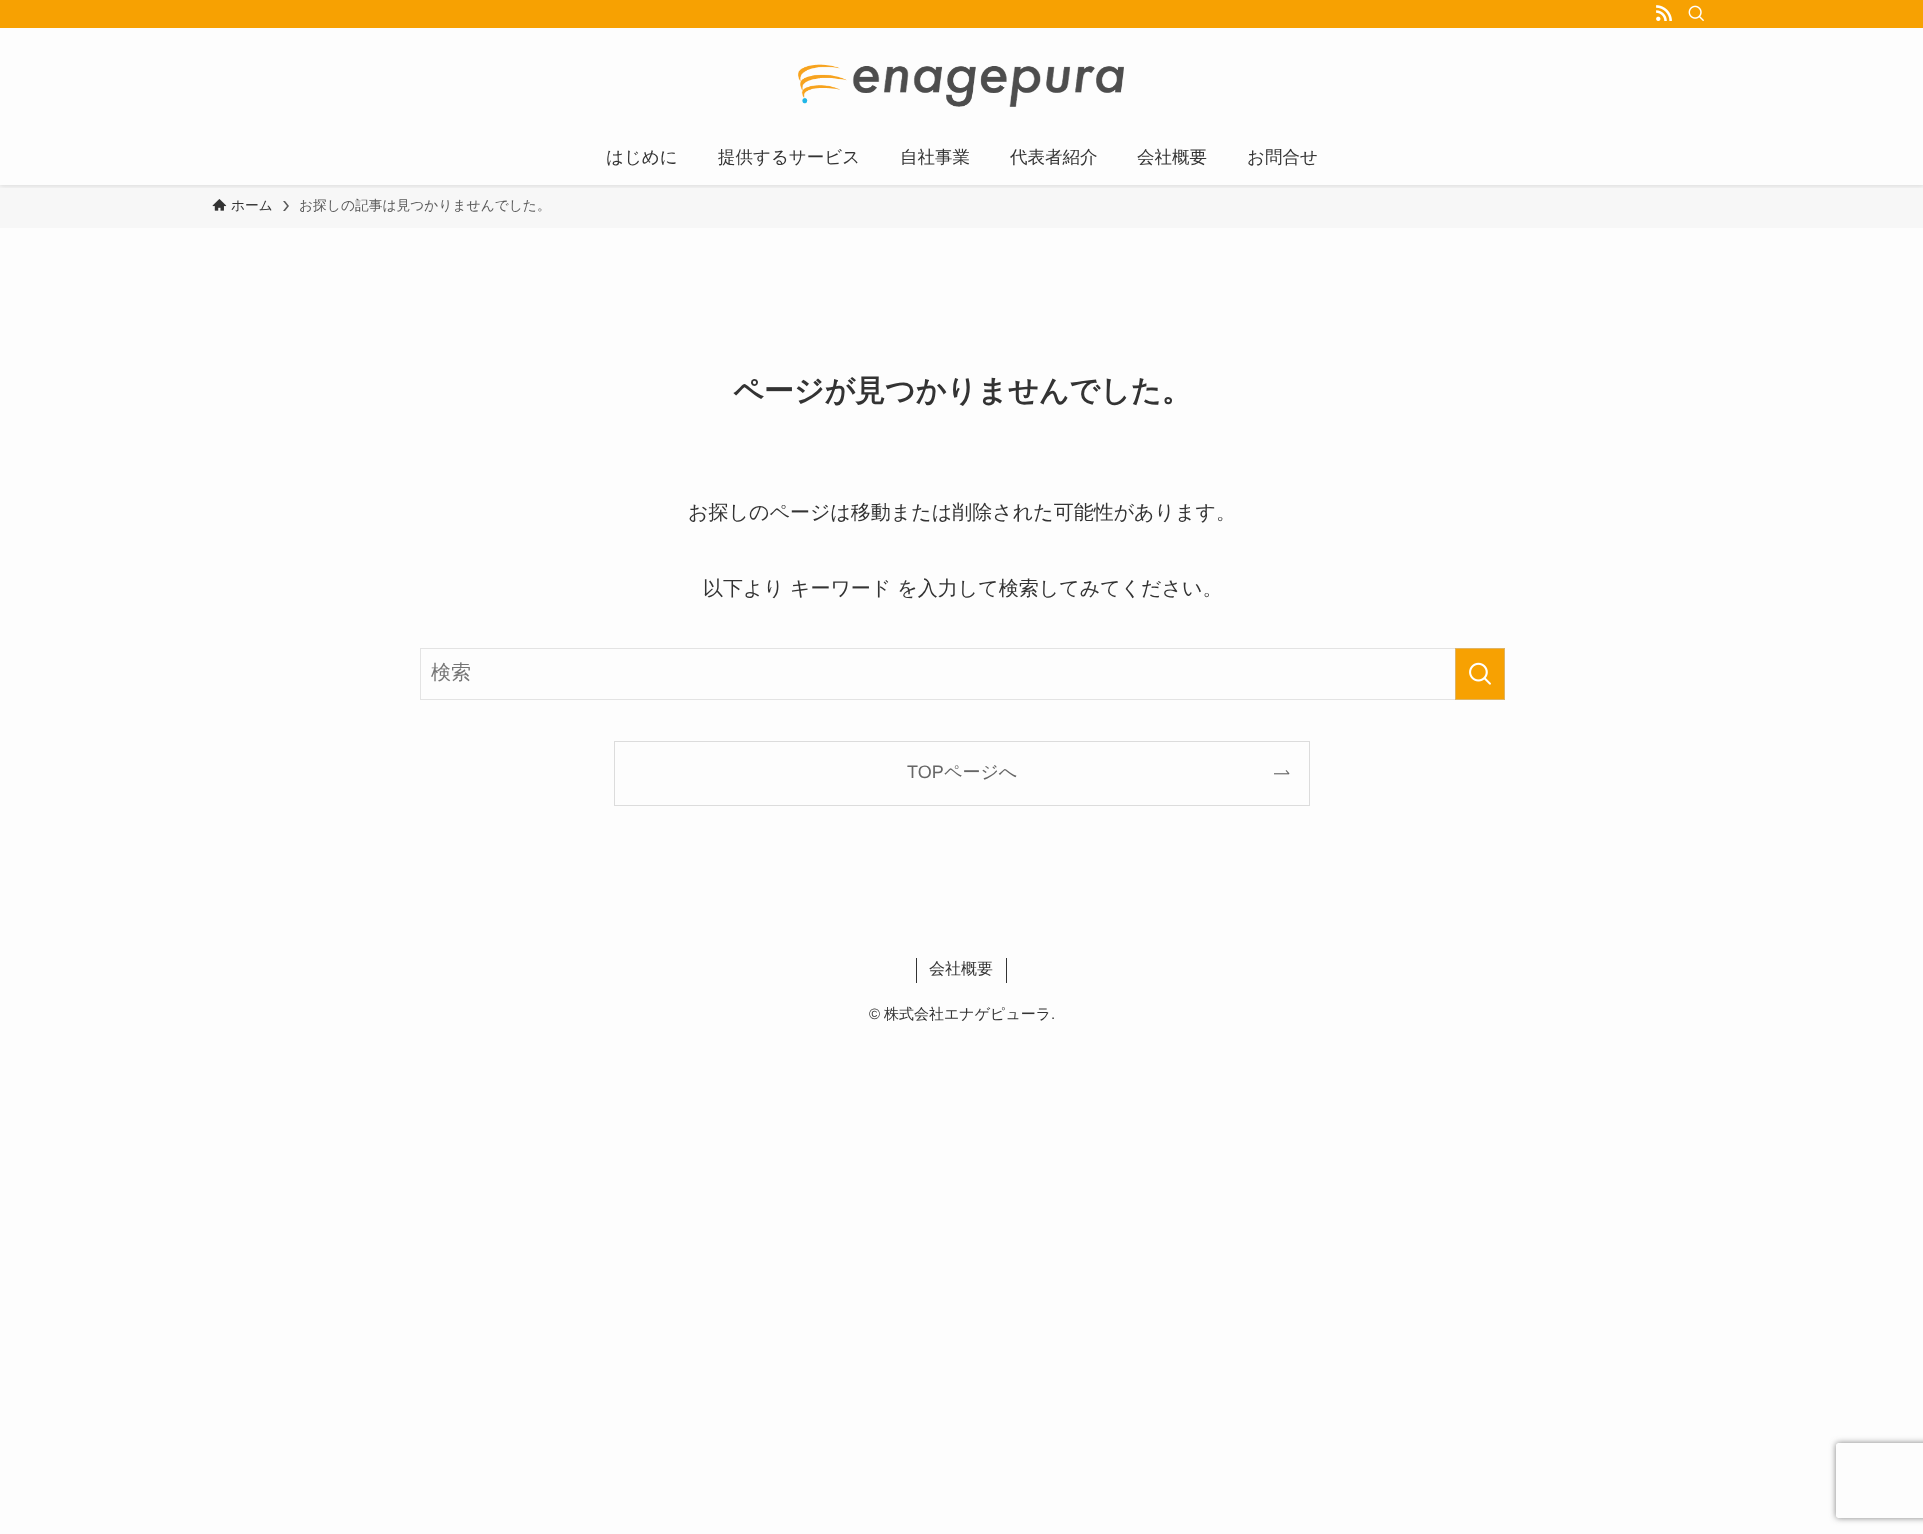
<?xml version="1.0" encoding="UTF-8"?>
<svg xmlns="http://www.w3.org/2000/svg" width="1923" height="1534">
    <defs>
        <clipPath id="clip1"><rect x="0" y="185" width="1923" height="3"/></clipPath>
        <filter id="blur1" x="-50%" y="-200%" width="200%" height="500%"><feGaussianBlur stdDeviation="2.5"/></filter>
        <clipPath id="clip2"><path d="M 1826 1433 H 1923 V 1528 H 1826 Z M 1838.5 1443 H 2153.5 C 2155 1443 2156 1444 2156 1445.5 V 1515.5 C 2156 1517 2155 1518 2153.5 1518 H 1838.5 C 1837 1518 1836 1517 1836 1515.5 V 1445.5 C 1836 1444 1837 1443 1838.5 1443 Z" clip-rule="evenodd"/></clipPath>
        <filter id="blur2" x="-50%" y="-200%" width="200%" height="500%"><feGaussianBlur stdDeviation="3"/></filter>
    </defs>
    <rect width="100%" height="100%" fill="#FDFDFD"/>
    <rect x="0" y="185" width="1923" height="43" fill="#F7F7F7"/>
    <g clip-path="url(#clip1)">
        <rect x="0" y="1" width="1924" height="185" fill="#000000" fill-opacity="0.12" filter="url(#blur1)"/>
    </g>
    <rect x="0" y="0" width="1923" height="28" fill="#F7A102"/>
    <image x="1656" y="5" width="16" height="16" href="img_01.png"/>
    <image x="1688" y="5" width="16" height="16" href="img_02.png"/>
    <image x="798" y="64" width="326" height="43" href="img_03.png"/>
    <text x="606" y="163" font-family="WenQuanYi Zen Hei" font-size="17.5" font-weight="500" fill="#333333">はじめに</text>
    <text x="718" y="163" font-family="WenQuanYi Zen Hei" font-size="17.5" font-weight="500" fill="#333333">提供するサービス</text>
    <text x="900" y="163" font-family="WenQuanYi Zen Hei" font-size="17.5" font-weight="500" fill="#333333">自社事業</text>
    <text x="1010" y="163" font-family="WenQuanYi Zen Hei" font-size="17.5" font-weight="500" fill="#333333">代表者紹介</text>
    <text x="1137" y="163" font-family="WenQuanYi Zen Hei" font-size="17.5" font-weight="500" fill="#333333">会社概要</text>
    <text x="1247" y="163" font-family="WenQuanYi Zen Hei" font-size="17.5" font-weight="500" fill="#333333">お問合せ</text>
    <image x="212" y="199" width="15" height="12" href="img_04.png"/>
    <text x="231" y="210" font-family="WenQuanYi Zen Hei" font-size="13.75" font-weight="500" fill="#333333">ホーム</text>
    <path d="M 285 201 H 283 L 287 206 L 283 211 H 285 L 289 206 Z" fill="#5A5A5A"/>
    <text x="299" y="210" font-family="WenQuanYi Zen Hei" font-size="13.75" font-weight="500" fill="#5A5A5A">お探しの記事は見つかりませんでした。</text>
    <text x="733" y="401" font-family="WenQuanYi Zen Hei" font-size="30" font-weight="700" fill="#333333">ページが見つかりませんでした。</text>
    <text x="688" y="519" font-family="WenQuanYi Zen Hei" font-size="20" font-weight="500" fill="#333333">お探しのページは移動または削除された可能性があります。</text>
    <text x="703" y="595" font-family="WenQuanYi Zen Hei" font-size="20" font-weight="500" fill="#333333">以下より キーワード を入力して検索してみてください。</text>
    <rect x="420.5" y="648.5" width="1084" height="51" fill="none" stroke="#E3E3E3"/>
    <text x="431" y="679" font-family="WenQuanYi Zen Hei" font-size="20" font-weight="500" fill="#757575">検索</text>
    <rect x="1455.5" y="648.5" width="49" height="51" fill="#F7A102" stroke="#DFB465"/>
    <image x="1469" y="662" width="22" height="23" href="img_05.png"/>
    <rect x="614.5" y="741.5" width="695" height="64" fill="none" stroke="#DCDCDC"/>
    <text x="907" y="778" font-family="Liberation Sans" font-size="18" fill="#666666">TOP</text>
    <text x="944" y="778" font-family="WenQuanYi Zen Hei" font-size="18" font-weight="500" fill="#666666">ページへ</text>
    <image x="1274" y="770" width="16" height="5" href="img_06.png"/>
    <rect x="1006" y="958" width="1" height="25" fill="#333333"/>
    <rect x="916" y="958" width="1" height="25" fill="#333333"/>
    <text x="929" y="974" font-family="WenQuanYi Zen Hei" font-size="16" font-weight="500" fill="#333333">会社概要</text>
    <text x="869" y="1019" font-family="Liberation Sans" font-size="15" fill="#333333">©</text>
    <text x="884" y="1019" font-family="WenQuanYi Zen Hei" font-size="15" font-weight="500" fill="#333333">株式会社エナゲピューラ</text>
    <text x="1051" y="1019" font-family="Liberation Sans" font-size="15" fill="#333333">.</text>
    <g clip-path="url(#clip2)">
        <rect x="1836" y="1443" width="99" height="75" rx="2.5" fill="#808080" filter="url(#blur2)"/>
    </g>
</svg>
